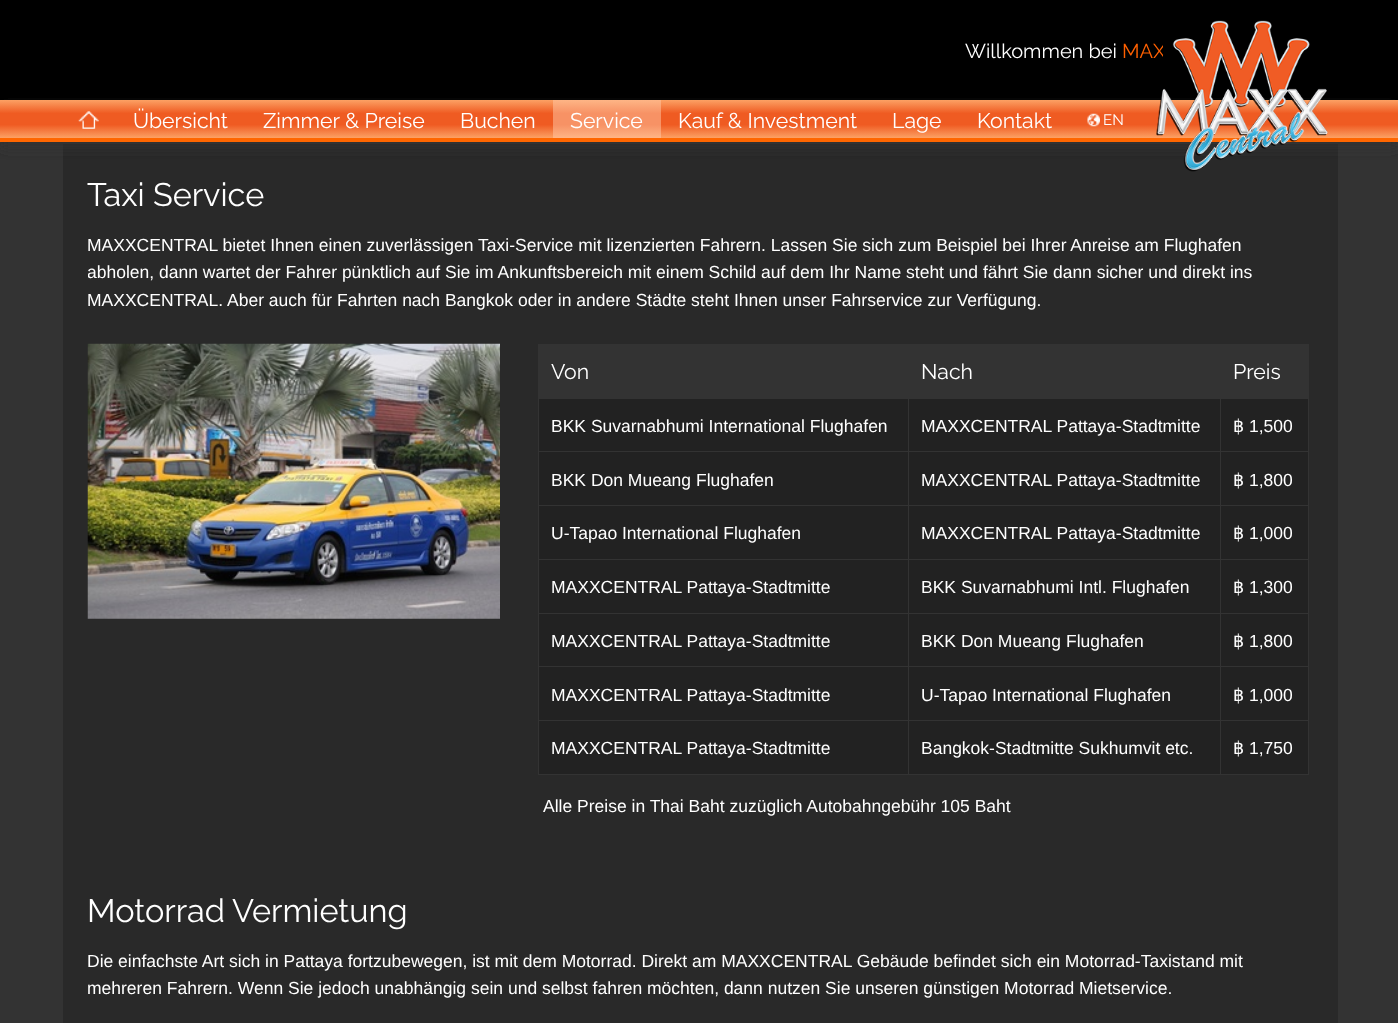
<?xml version="1.0" encoding="UTF-8"?>
<svg xmlns="http://www.w3.org/2000/svg" width="1398" height="1023">
    <defs>
        <clipPath id="clip1"><rect x="75" y="38" width="1088" height="27"/></clipPath>
        <filter id="blur1" x="-50%" y="-200%" width="200%" height="500%"><feGaussianBlur stdDeviation="6"/></filter>
        <linearGradient id="g1" gradientUnits="userSpaceOnUse" x1="699" y1="100" x2="699" y2="138"><stop offset="0" stop-color="#FCA164"/><stop offset="0.35" stop-color="#EF5B22"/><stop offset="0.65" stop-color="#EF5B22"/><stop offset="1" stop-color="#FCA164"/></linearGradient>
        <linearGradient id="g2" gradientUnits="userSpaceOnUse" x1="699" y1="100" x2="699" y2="138"><stop offset="0" stop-color="#FEB586"/><stop offset="0.35" stop-color="#F79265"/><stop offset="0.65" stop-color="#F79265"/><stop offset="1" stop-color="#FEB586"/></linearGradient>
        <clipPath id="clip2"><rect x="88" y="181" width="1225" height="657"/></clipPath>
    </defs>
    <rect width="100%" height="100%" fill="#000000"/>
    <text x="965" y="58" font-family="Raleway" font-size="20" font-weight="100" fill="#FFFFFF">Willkommen bei</text>
    <g clip-path="url(#clip1)">
        <text x="1122" y="58" font-family="Raleway" font-size="20" font-weight="100" fill="#FF6000">MAX</text>
    </g>
    <rect x="0" y="142" width="1398" height="881" fill="#333333"/>
    <rect x="63" y="144" width="1275" height="879" fill="#292929"/>
    <rect x="0" y="106" width="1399" height="42" fill="#323232" fill-opacity="0.75" filter="url(#blur1)"/>
    <rect x="0" y="100" width="1398" height="38" fill="url(#g1)"/>
    <rect x="0" y="138" width="1398" height="4" fill="#FF6600"/>
    <image x="1156" y="20" width="172" height="152" href="img_01.png"/>
    <rect x="553" y="100" width="108" height="38" fill="url(#g2)"/>
    <image x="78" y="111" width="21" height="18" href="img_02.png"/>
    <text x="133" y="128" font-family="Raleway" font-size="21.25" font-weight="100" fill="#FFFFFF">Übersicht</text>
    <text x="263" y="128" font-family="Raleway" font-size="21.25" font-weight="100" fill="#FFFFFF">Zimmer &amp; Preise</text>
    <text x="460" y="128" font-family="Raleway" font-size="21.25" font-weight="100" fill="#FFFFFF">Buchen</text>
    <text x="570" y="128" font-family="Raleway" font-size="21.25" font-weight="100" fill="#FFFFFF">Service</text>
    <text x="678" y="128" font-family="Raleway" font-size="21.25" font-weight="100" fill="#FFFFFF">Kauf &amp; Investment</text>
    <text x="892" y="128" font-family="Raleway" font-size="21.25" font-weight="100" fill="#FFFFFF">Lage</text>
    <text x="977" y="128" font-family="Raleway" font-size="21.25" font-weight="100" fill="#FFFFFF">Kontakt</text>
    <image x="1087" y="113" width="13" height="14" href="img_03.png"/>
    <text x="1103" y="125" font-family="Raleway" font-size="15" font-weight="100" fill="#FFFFFF">EN</text>
    <text x="87" y="206" font-family="Raleway" font-size="32.5" font-weight="100" fill="#FFFFFF">Taxi Service</text>
    <text x="87" y="251" font-family="Liberation Sans" font-size="17.5" fill="#FFFFFF">MAXXCENTRAL bietet Ihnen einen zuverlässigen Taxi-Service mit lizenzierten Fahrern. Lassen Sie sich zum Beispiel bei Ihrer Anreise am Flughafen</text>
    <g clip-path="url(#clip2)">
        <text x="87" y="278" font-family="Liberation Sans" font-size="17.5" fill="#FFFFFF">abholen, dann wartet der Fahrer pünktlich auf Sie im Ankunftsbereich mit einem Schild auf dem Ihr Name steht und fährt Sie dann sicher und direkt ins</text>
    </g>
    <text x="87" y="306" font-family="Liberation Sans" font-size="17.5" fill="#FFFFFF">MAXXCENTRAL. Aber auch für Fahrten nach Bangkok oder in andere Städte steht Ihnen unser Fahrservice zur Verfügung.</text>
    <image x="87" y="343" width="413" height="276" href="img_04.png"/>
    <rect x="538" y="344" width="771" height="1" fill="#333333"/>
    <rect x="1308" y="344" width="1" height="431" fill="#333333"/>
    <rect x="538" y="774" width="771" height="1" fill="#333333"/>
    <rect x="538" y="344" width="1" height="431" fill="#333333"/>
    <rect x="539" y="345" width="769" height="54" fill="#333333"/>
    <text x="551" y="379" font-family="Raleway" font-size="21.25" font-weight="100" fill="#FFFFFF">Von</text>
    <text x="921" y="379" font-family="Raleway" font-size="21.25" font-weight="100" fill="#FFFFFF">Nach</text>
    <text x="1233" y="379" font-family="Raleway" font-size="21.25" font-weight="100" fill="#FFFFFF">Preis</text>
    <rect x="539" y="399" width="769" height="106" fill="#222222"/>
    <text x="551" y="432" font-family="Liberation Sans" font-size="17.5" fill="#FFFFFF">BKK Suvarnabhumi International Flughafen</text>
    <rect x="1220" y="451" width="89" height="1" fill="#333333"/>
    <rect x="1220" y="505" width="89" height="1" fill="#333333"/>
    <rect x="539" y="506" width="769" height="53" fill="#222222"/>
    <rect x="1220" y="559" width="89" height="1" fill="#333333"/>
    <rect x="539" y="560" width="769" height="53" fill="#222222"/>
    <rect x="1220" y="613" width="89" height="1" fill="#333333"/>
    <rect x="539" y="614" width="769" height="106" fill="#222222"/>
    <rect x="1220" y="666" width="89" height="1" fill="#333333"/>
    <rect x="1220" y="720" width="89" height="1" fill="#333333"/>
    <rect x="539" y="721" width="769" height="53" fill="#222222"/>
    <rect x="1220" y="720" width="1" height="55" fill="#333333"/>
    <rect x="908" y="720" width="313" height="1" fill="#333333"/>
    <rect x="1220" y="666" width="1" height="55" fill="#333333"/>
    <rect x="908" y="666" width="313" height="1" fill="#333333"/>
    <rect x="1220" y="613" width="1" height="55" fill="#333333"/>
    <rect x="908" y="613" width="313" height="1" fill="#333333"/>
    <rect x="1220" y="559" width="1" height="55" fill="#333333"/>
    <rect x="908" y="559" width="313" height="1" fill="#333333"/>
    <rect x="1220" y="505" width="1" height="55" fill="#333333"/>
    <rect x="908" y="505" width="313" height="1" fill="#333333"/>
    <rect x="1220" y="451" width="1" height="55" fill="#333333"/>
    <rect x="908" y="451" width="313" height="1" fill="#333333"/>
    <rect x="908" y="720" width="1" height="55" fill="#333333"/>
    <rect x="538" y="720" width="371" height="1" fill="#333333"/>
    <rect x="908" y="666" width="1" height="55" fill="#333333"/>
    <rect x="538" y="666" width="371" height="1" fill="#333333"/>
    <rect x="908" y="613" width="1" height="55" fill="#333333"/>
    <rect x="538" y="613" width="371" height="1" fill="#333333"/>
    <rect x="908" y="559" width="1" height="55" fill="#333333"/>
    <rect x="538" y="559" width="371" height="1" fill="#333333"/>
    <rect x="908" y="505" width="1" height="55" fill="#333333"/>
    <rect x="538" y="505" width="371" height="1" fill="#333333"/>
    <rect x="908" y="451" width="1" height="55" fill="#333333"/>
    <rect x="538" y="451" width="371" height="1" fill="#333333"/>
    <rect x="908" y="398" width="1" height="55" fill="#333333"/>
    <text x="921" y="432" font-family="Liberation Sans" font-size="17.5" fill="#FFFFFF">MAXXCENTRAL Pattaya-Stadtmitte</text>
    <rect x="1220" y="398" width="1" height="55" fill="#333333"/>
    <text x="1233" y="432" font-family="DejaVu Sans" font-size="17.5" fill="#FFFFFF">฿</text>
    <text x="1249" y="432" font-family="Liberation Sans" font-size="17.5" fill="#FFFFFF">1,500</text>
    <text x="551" y="486" font-family="Liberation Sans" font-size="17.5" fill="#FFFFFF">BKK Don Mueang Flughafen</text>
    <text x="921" y="486" font-family="Liberation Sans" font-size="17.5" fill="#FFFFFF">MAXXCENTRAL Pattaya-Stadtmitte</text>
    <text x="1233" y="486" font-family="DejaVu Sans" font-size="17.5" fill="#FFFFFF">฿</text>
    <text x="1249" y="486" font-family="Liberation Sans" font-size="17.5" fill="#FFFFFF">1,800</text>
    <text x="551" y="539" font-family="Liberation Sans" font-size="17.5" fill="#FFFFFF">U-Tapao International Flughafen</text>
    <text x="921" y="539" font-family="Liberation Sans" font-size="17.5" fill="#FFFFFF">MAXXCENTRAL Pattaya-Stadtmitte</text>
    <text x="1233" y="539" font-family="DejaVu Sans" font-size="17.5" fill="#FFFFFF">฿</text>
    <text x="1249" y="539" font-family="Liberation Sans" font-size="17.5" fill="#FFFFFF">1,000</text>
    <text x="551" y="593" font-family="Liberation Sans" font-size="17.5" fill="#FFFFFF">MAXXCENTRAL Pattaya-Stadtmitte</text>
    <text x="921" y="593" font-family="Liberation Sans" font-size="17.5" fill="#FFFFFF">BKK Suvarnabhumi Intl. Flughafen</text>
    <text x="1233" y="593" font-family="DejaVu Sans" font-size="17.5" fill="#FFFFFF">฿</text>
    <text x="1249" y="593" font-family="Liberation Sans" font-size="17.5" fill="#FFFFFF">1,300</text>
    <text x="551" y="647" font-family="Liberation Sans" font-size="17.5" fill="#FFFFFF">MAXXCENTRAL Pattaya-Stadtmitte</text>
    <text x="921" y="647" font-family="Liberation Sans" font-size="17.5" fill="#FFFFFF">BKK Don Mueang Flughafen</text>
    <text x="1233" y="647" font-family="DejaVu Sans" font-size="17.5" fill="#FFFFFF">฿</text>
    <text x="1249" y="647" font-family="Liberation Sans" font-size="17.5" fill="#FFFFFF">1,800</text>
    <text x="551" y="701" font-family="Liberation Sans" font-size="17.5" fill="#FFFFFF">MAXXCENTRAL Pattaya-Stadtmitte</text>
    <text x="921" y="701" font-family="Liberation Sans" font-size="17.5" fill="#FFFFFF">U-Tapao International Flughafen</text>
    <text x="1233" y="701" font-family="DejaVu Sans" font-size="17.5" fill="#FFFFFF">฿</text>
    <text x="1249" y="701" font-family="Liberation Sans" font-size="17.5" fill="#FFFFFF">1,000</text>
    <text x="551" y="754" font-family="Liberation Sans" font-size="17.5" fill="#FFFFFF">MAXXCENTRAL Pattaya-Stadtmitte</text>
    <text x="921" y="754" font-family="Liberation Sans" font-size="17.5" fill="#FFFFFF">Bangkok-Stadtmitte Sukhumvit etc.</text>
    <text x="1233" y="754" font-family="DejaVu Sans" font-size="17.5" fill="#FFFFFF">฿</text>
    <text x="1249" y="754" font-family="Liberation Sans" font-size="17.5" fill="#FFFFFF">1,750</text>
    <text x="543" y="812" font-family="Liberation Sans" font-size="17.5" fill="#FFFFFF">Alle Preise in Thai Baht zuzüglich Autobahngebühr 105 Baht</text>
    <text x="87" y="922" font-family="Raleway" font-size="32.5" font-weight="100" fill="#FFFFFF">Motorrad Vermietung</text>
    <text font-family="Liberation Sans" font-size="17.5" fill="#FFFFFF">
        <tspan x="87" y="967">Die einfachste Art sich in Pattaya fortzubewegen, ist mit dem Motorrad. Direkt am MAXXCENTRAL Gebäude befindet sich ein Motorrad-Taxistand mit</tspan>
        <tspan x="87" y="994">mehreren Fahrern. Wenn Sie jedoch unabhängig sein und selbst fahren möchten, dann nutzen Sie unseren günstigen Motorrad Mietservice.</tspan>
    </text>
</svg>
